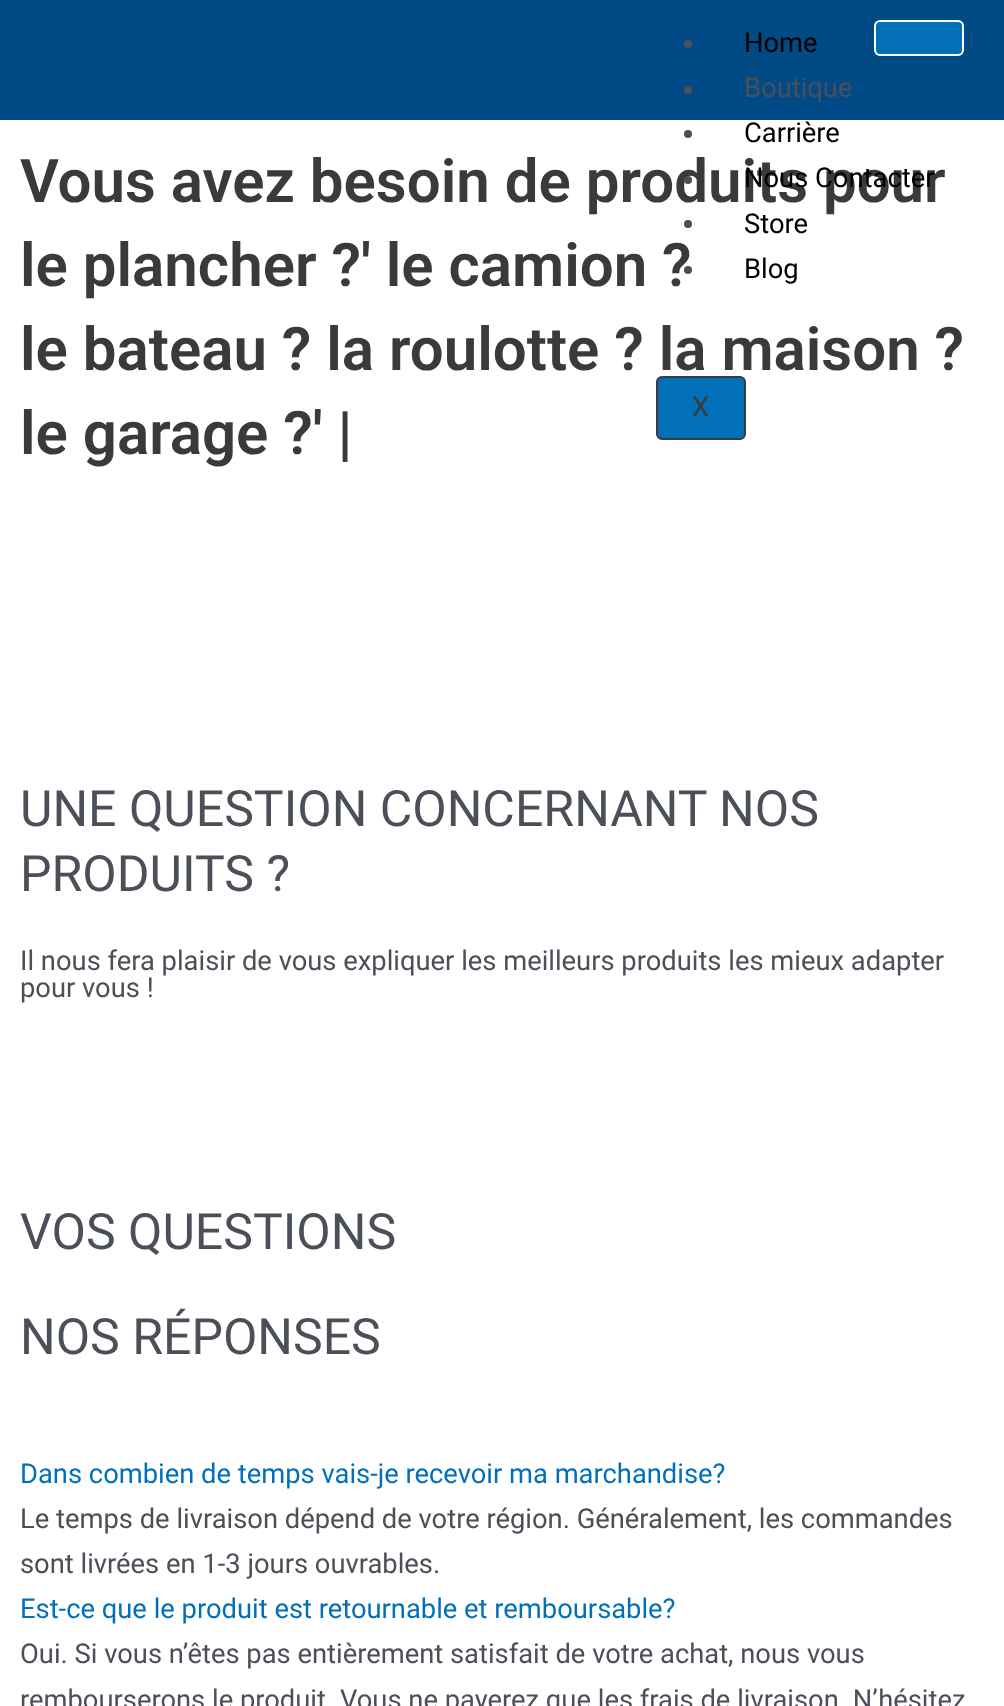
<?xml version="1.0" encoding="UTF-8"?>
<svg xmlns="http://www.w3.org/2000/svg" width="1004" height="1706">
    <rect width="100%" height="100%" fill="#FFFFFF"/>
    <rect x="0" y="0" width="1004" height="120" fill="#004A86"/>
    <rect x="875" y="21" width="88" height="34" rx="5" fill="#0170B9" stroke="#FFFFFF" stroke-width="2"/>
    <circle cx="688" cy="44" r="4" fill="#4B4F58"/>
    <text x="744" y="52" font-family="Roboto" font-size="27.35" fill="#000000">Home</text>
    <circle cx="688" cy="90" r="4" fill="#4B4F58"/>
    <text x="744" y="97" font-family="Roboto" font-size="27.35" fill="#4B4F58">Boutique</text>
    <circle cx="688" cy="134" r="4" fill="#4B4F58"/>
    <text x="744" y="142" font-family="Roboto" font-size="27.35" fill="#000000">Carrière</text>
    <text x="20" y="202" font-family="Roboto" font-size="60" font-weight="600" fill="#3A3A3A">Vous avez besoin de produits pour</text>
    <circle cx="688" cy="180" r="4" fill="#4B4F58"/>
    <text x="744" y="187" font-family="Roboto" font-size="27.35" fill="#000000">Nous Contacter</text>
    <circle cx="688" cy="224" r="4" fill="#4B4F58"/>
    <text x="744" y="233" font-family="Roboto" font-size="27.35" fill="#000000">Store</text>
    <text x="20" y="286" font-family="Roboto" font-size="60" font-weight="600" fill="#3A3A3A">le plancher ?' le camion ?</text>
    <circle cx="688" cy="270" r="4" fill="#4B4F58"/>
    <text x="744" y="278" font-family="Roboto" font-size="27.35" fill="#000000">Blog</text>
    <rect x="657" y="377" width="88" height="62" rx="5" fill="#0170B9" stroke="#3A3A3A" stroke-width="2"/>
    <text x="692" y="416" font-family="Roboto" font-size="27.35" fill="#3A3A3A">X</text>
    <text font-family="Roboto" font-size="60" font-weight="600" fill="#3A3A3A">
        <tspan x="20" y="370">le bateau ? la roulotte ? la maison ?</tspan>
        <tspan x="20" y="454">le garage ?' |</tspan>
    </text>
    <text font-family="Roboto" font-size="50" fill="#4B4F58">
        <tspan x="20" y="826">UNE QUESTION CONCERNANT NOS</tspan>
        <tspan x="20" y="891">PRODUITS ?</tspan>
    </text>
    <text font-family="Roboto" font-size="27.35" fill="#4B4F58">
        <tspan x="20" y="970">Il nous fera plaisir de vous expliquer les meilleurs produits les mieux adapter</tspan>
        <tspan x="20" y="997">pour vous !</tspan>
    </text>
    <text x="20" y="1249" font-family="Roboto" font-size="50" fill="#4B4F58">VOS QUESTIONS</text>
    <text x="20" y="1354" font-family="Roboto" font-size="50" fill="#4B4F58">NOS RÉPONSES</text>
    <text x="20" y="1483" font-family="Roboto" font-size="27.35" fill="#0170B9">Dans combien de temps vais-je recevoir ma marchandise?</text>
    <text font-family="Roboto" font-size="27.35" fill="#4B4F58">
        <tspan x="20" y="1528">Le temps de livraison dépend de votre région. Généralement, les commandes</tspan>
        <tspan x="20" y="1573">sont livrées en 1-3 jours ouvrables.</tspan>
    </text>
    <text x="20" y="1618" font-family="Roboto" font-size="27.35" fill="#0170B9">Est-ce que le produit est retournable et remboursable?</text>
    <text font-family="Roboto" font-size="27.35" fill="#4B4F58">
        <tspan x="20" y="1663">Oui. Si vous n’êtes pas entièrement satisfait de votre achat, nous vous</tspan>
        <tspan x="20" y="1709">rembourserons le produit. Vous ne payerez que les frais de livraison. N’hésitez</tspan>
    </text>
</svg>
